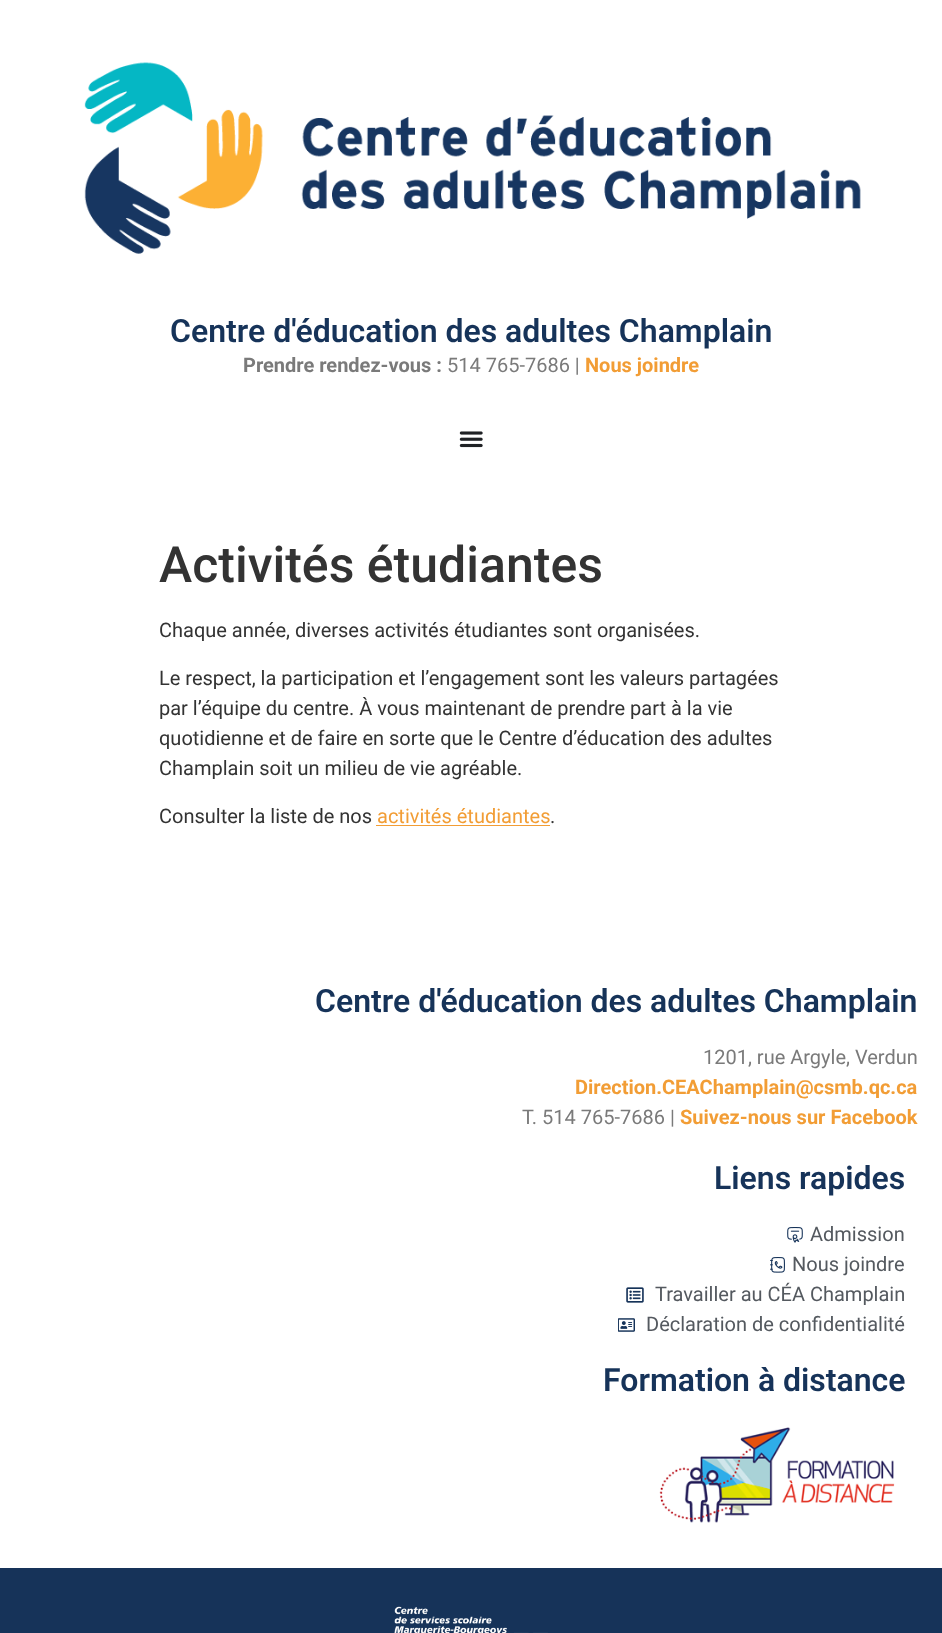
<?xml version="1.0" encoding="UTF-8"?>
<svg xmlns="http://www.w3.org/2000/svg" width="942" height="1633">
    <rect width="100%" height="100%" fill="#FFFFFF"/>
    <image x="84" y="62" width="777" height="192" href="img_01.png"/>
    <text x="170" y="342" font-family="Roboto" font-size="32" font-weight="600" fill="#163359">Centre d'éducation des adultes Champlain</text>
    <text x="243" y="372" font-family="Roboto" font-size="20" font-weight="700" fill="#7A7A7A">Prendre rendez-vous :</text>
    <text x="447" y="372" font-family="Roboto" font-size="20" fill="#7A7A7A">514 765-7686 |</text>
    <text x="585" y="372" font-family="Roboto" font-size="20" font-weight="700" fill="#F29D35">Nous joindre</text>
    <image x="459" y="431" width="24" height="17" href="img_02.png"/>
    <text x="159" y="582" font-family="Roboto" font-size="50" font-weight="500" fill="#333333">Activités étudiantes</text>
    <text x="159" y="637" font-family="Roboto" font-size="20" fill="#333333">Chaque année, diverses activités étudiantes sont organisées.</text>
    <text font-family="Roboto" font-size="20" fill="#333333">
        <tspan x="159" y="685">Le respect, la participation et l’engagement sont les valeurs partagées</tspan>
        <tspan x="159" y="715">par l’équipe du centre. À vous maintenant de prendre part à la vie</tspan>
        <tspan x="159" y="745">quotidienne et de faire en sorte que le Centre d’éducation des adultes</tspan>
        <tspan x="159" y="775">Champlain soit un milieu de vie agréable.</tspan>
    </text>
    <text x="159" y="823" font-family="Roboto" font-size="20" fill="#333333">Consulter la liste de nos</text>
    <text x="377" y="823" font-family="Roboto" font-size="20" fill="#F29D35">activités étudiantes</text>
    <rect x="376" y="825" width="174" height="1" fill="#F29D35"/>
    <text x="550" y="823" font-family="Roboto" font-size="20" fill="#333333">.</text>
    <text x="315" y="1012" font-family="Roboto" font-size="32" font-weight="600" fill="#163359">Centre d'éducation des adultes Champlain</text>
    <text x="703" y="1064" font-family="Roboto" font-size="20" fill="#7A7A7A">1201, rue Argyle, Verdun</text>
    <text x="575" y="1094" font-family="Roboto" font-size="20" font-weight="700" fill="#F29D35">Direction.CEAChamplain@csmb.qc.ca</text>
    <text x="522" y="1124" font-family="Roboto" font-size="20" fill="#7A7A7A">T. 514 765-7686 |</text>
    <text x="680" y="1124" font-family="Roboto" font-size="20" font-weight="700" fill="#F29D35">Suivez-nous sur Facebook</text>
    <text x="714" y="1189" font-family="Roboto" font-size="32" font-weight="600" fill="#163359">Liens rapides</text>
    <image x="787" y="1227" width="16" height="16" href="img_03.png"/>
    <text x="810" y="1241" font-family="Roboto" font-size="20" fill="#54595F">Admission</text>
    <image x="770" y="1257" width="15" height="16" href="img_04.png"/>
    <text x="792" y="1271" font-family="Roboto" font-size="20" fill="#54595F">Nous joindre</text>
    <image x="626" y="1287" width="18" height="16" href="img_05.png"/>
    <text x="655" y="1301" font-family="Roboto" font-size="20" fill="#54595F">Travailler au CÉA Champlain</text>
    <image x="618" y="1318" width="17" height="14" href="img_06.png"/>
    <text x="646" y="1331" font-family="Roboto" font-size="20" fill="#54595F">Déclaration de confidentialité</text>
    <text x="603" y="1391" font-family="Roboto" font-size="32" font-weight="600" fill="#163359">Formation à distance</text>
    <image x="659" y="1427" width="236" height="96" href="img_07.png"/>
    <rect x="0" y="1568" width="942" height="65" fill="#163359"/>
    <image x="394" y="1606" width="154" height="27" href="img_08.png"/>
</svg>
